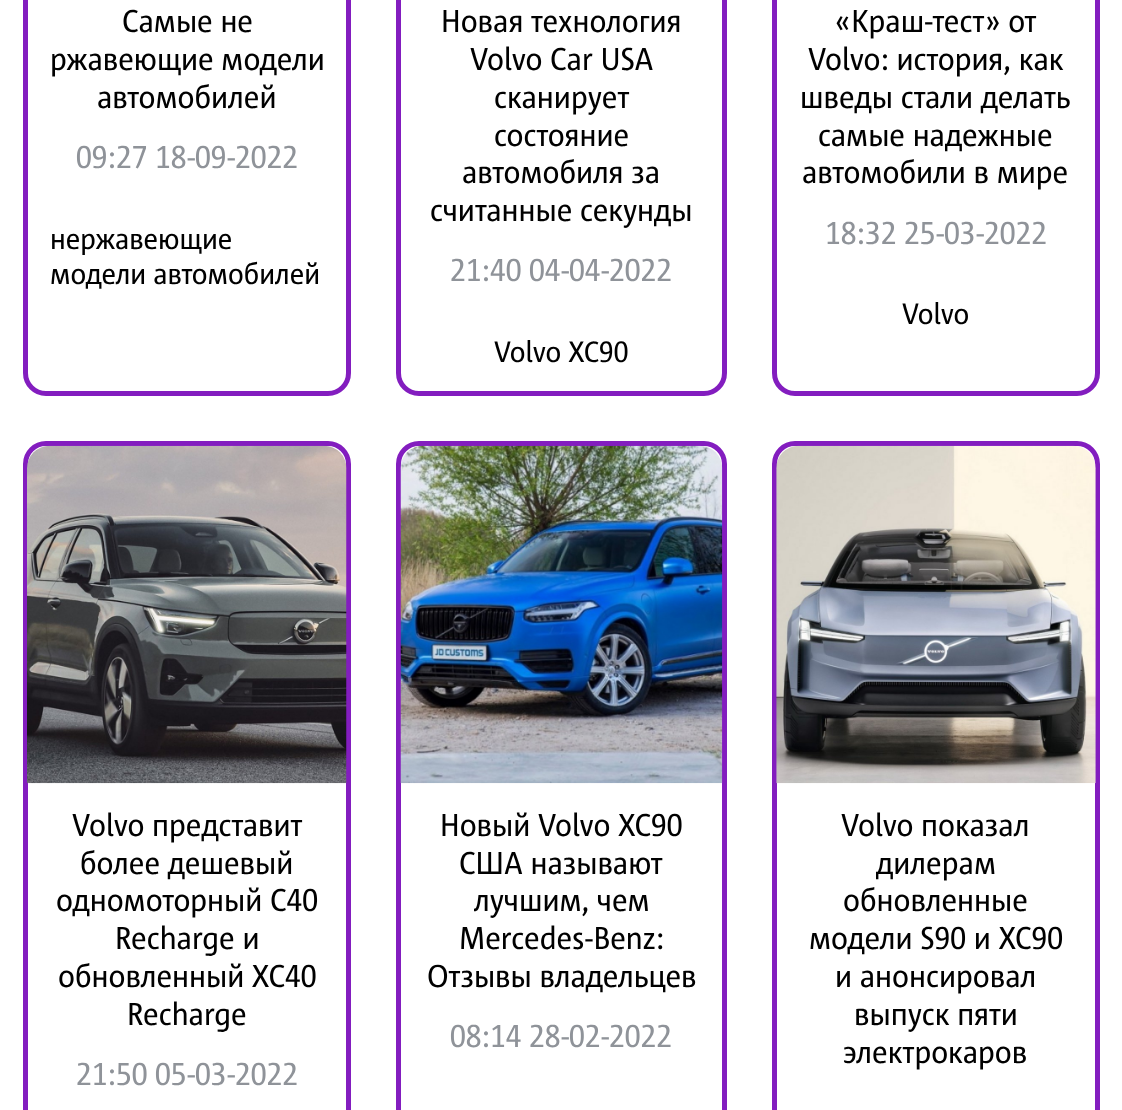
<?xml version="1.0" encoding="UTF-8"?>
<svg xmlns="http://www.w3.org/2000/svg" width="1122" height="1110">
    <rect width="100%" height="100%" fill="#FFFFFF"/>
    <rect x="25.5" y="-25.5" width="323" height="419" rx="20.5" fill="none" stroke="#831DBF" stroke-width="5"/>
    <text x="122" y="32" font-family="'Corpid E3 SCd'" font-size="31.5" fill="#000000">Самые не</text>
    <text x="50" y="70" font-family="'Corpid E3 SCd'" font-size="31.5" fill="#000000">ржавеющие модели</text>
    <text x="97" y="108" font-family="'Corpid E3 SCd'" font-size="31.5" fill="#000000">автомобилей</text>
    <text x="76" y="168" font-family="'Corpid E3 SCd'" font-size="31.5" fill="#8F9399">09:27 18-09-2022</text>
    <text font-family="'Corpid E3 SCd'" font-size="29.25" fill="#000000">
        <tspan x="50" y="249">нержавеющие</tspan>
        <tspan x="50" y="284">модели автомобилей</tspan>
    </text>
    <rect x="398.5" y="-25.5" width="326" height="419" rx="20.5" fill="none" stroke="#831DBF" stroke-width="5"/>
    <text x="441" y="32" font-family="'Corpid E3 SCd'" font-size="31.5" fill="#000000">Новая технология</text>
    <text x="470" y="70" font-family="'Corpid E3 SCd'" font-size="31.5" fill="#000000">Volvo Car USA</text>
    <text font-family="'Corpid E3 SCd'" font-size="31.5" fill="#000000">
        <tspan x="494" y="108">сканирует</tspan>
        <tspan x="494" y="146">состояние</tspan>
    </text>
    <text x="462" y="183" font-family="'Corpid E3 SCd'" font-size="31.5" fill="#000000">автомобиля за</text>
    <text x="430" y="221" font-family="'Corpid E3 SCd'" font-size="31.5" fill="#000000">считанные секунды</text>
    <text x="450" y="281" font-family="'Corpid E3 SCd'" font-size="31.5" fill="#8F9399">21:40 04-04-2022</text>
    <text x="494" y="362" font-family="'Corpid E3 SCd'" font-size="29.25" fill="#000000">Volvo XC90</text>
    <rect x="774.5" y="-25.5" width="323" height="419" rx="20.5" fill="none" stroke="#831DBF" stroke-width="5"/>
    <text x="835" y="32" font-family="'Corpid E3 SCd'" font-size="31.5" fill="#000000">«Краш-тест» от</text>
    <text x="808" y="70" font-family="'Corpid E3 SCd'" font-size="31.5" fill="#000000">Volvo: история, как</text>
    <text x="800" y="108" font-family="'Corpid E3 SCd'" font-size="31.5" fill="#000000">шведы стали делать</text>
    <text x="818" y="146" font-family="'Corpid E3 SCd'" font-size="31.5" fill="#000000">самые надежные</text>
    <text x="802" y="183" font-family="'Corpid E3 SCd'" font-size="31.5" fill="#000000">автомобили в мире</text>
    <text x="825" y="244" font-family="'Corpid E3 SCd'" font-size="31.5" fill="#8F9399">18:32 25-03-2022</text>
    <text x="902" y="324" font-family="'Corpid E3 SCd'" font-size="29.25" fill="#000000">Volvo</text>
    <rect x="25.5" y="443.5" width="323" height="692" rx="20.5" fill="none" stroke="#831DBF" stroke-width="5"/>
    <image x="27" y="445" width="320" height="339" href="img_01.png"/>
    <text x="72" y="836" font-family="'Corpid E3 SCd'" font-size="31.5" fill="#000000">Volvo представит</text>
    <text x="80" y="874" font-family="'Corpid E3 SCd'" font-size="31.5" fill="#000000">более дешевый</text>
    <text x="56" y="911" font-family="'Corpid E3 SCd'" font-size="31.5" fill="#000000">одномоторный C40</text>
    <text x="115" y="949" font-family="'Corpid E3 SCd'" font-size="31.5" fill="#000000">Recharge и</text>
    <text x="58" y="987" font-family="'Corpid E3 SCd'" font-size="31.5" fill="#000000">обновленный XC40</text>
    <text x="127" y="1025" font-family="'Corpid E3 SCd'" font-size="31.5" fill="#000000">Recharge</text>
    <text x="76" y="1085" font-family="'Corpid E3 SCd'" font-size="31.5" fill="#8F9399">21:50 05-03-2022</text>
    <rect x="398.5" y="443.5" width="326" height="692" rx="20.5" fill="none" stroke="#831DBF" stroke-width="5"/>
    <image x="400" y="445" width="323" height="339" href="img_02.png"/>
    <text x="440" y="836" font-family="'Corpid E3 SCd'" font-size="31.5" fill="#000000">Новый Volvo XC90</text>
    <text x="459" y="874" font-family="'Corpid E3 SCd'" font-size="31.5" fill="#000000">США называют</text>
    <text x="474" y="911" font-family="'Corpid E3 SCd'" font-size="31.5" fill="#000000">лучшим, чем</text>
    <text x="459" y="949" font-family="'Corpid E3 SCd'" font-size="31.5" fill="#000000">Mercedes-Benz:</text>
    <text x="427" y="987" font-family="'Corpid E3 SCd'" font-size="31.5" fill="#000000">Отзывы владельцев</text>
    <text x="450" y="1047" font-family="'Corpid E3 SCd'" font-size="31.5" fill="#8F9399">08:14 28-02-2022</text>
    <rect x="774.5" y="443.5" width="323" height="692" rx="20.5" fill="none" stroke="#831DBF" stroke-width="5"/>
    <image x="776" y="445" width="320" height="339" href="img_03.png"/>
    <text x="841" y="836" font-family="'Corpid E3 SCd'" font-size="31.5" fill="#000000">Volvo показал</text>
    <text x="876" y="874" font-family="'Corpid E3 SCd'" font-size="31.5" fill="#000000">дилерам</text>
    <text x="843" y="911" font-family="'Corpid E3 SCd'" font-size="31.5" fill="#000000">обновленные</text>
    <text x="809" y="949" font-family="'Corpid E3 SCd'" font-size="31.5" fill="#000000">модели S90 и XC90</text>
    <text x="835" y="987" font-family="'Corpid E3 SCd'" font-size="31.5" fill="#000000">и анонсировал</text>
    <text x="854" y="1025" font-family="'Corpid E3 SCd'" font-size="31.5" fill="#000000">выпуск пяти</text>
    <text x="843" y="1063" font-family="'Corpid E3 SCd'" font-size="31.5" fill="#000000">электрокаров</text>
</svg>
